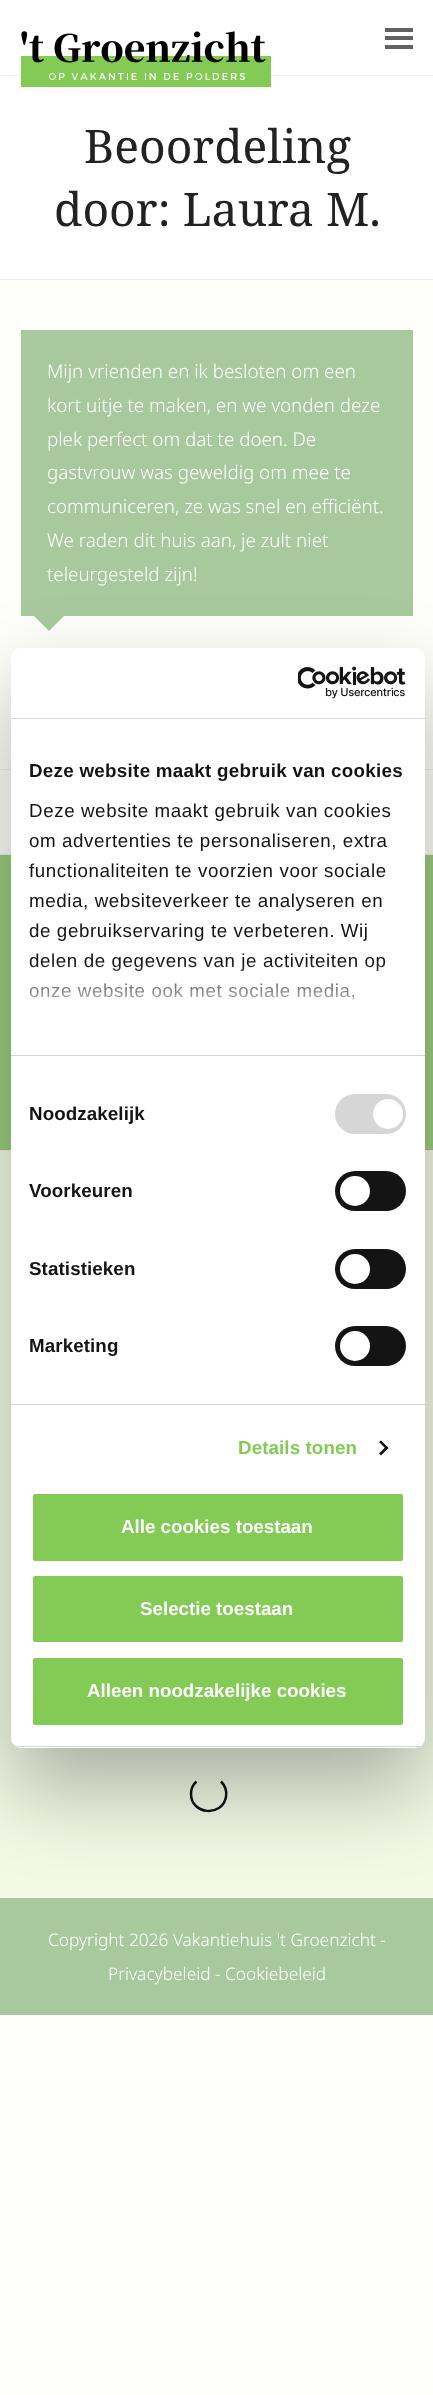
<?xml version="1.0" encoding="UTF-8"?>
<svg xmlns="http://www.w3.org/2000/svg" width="433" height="2395">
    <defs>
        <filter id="blur1" x="-50%" y="-200%" width="200%" height="500%"><feGaussianBlur stdDeviation="42.5"/></filter>
        <linearGradient id="g1" gradientUnits="userSpaceOnUse" x1="209" y1="1055" x2="209" y2="962"><stop offset="0" stop-color="#FFFFFF"/><stop offset="0.5" stop-color="#FFFFFF" stop-opacity="0.8"/><stop offset="1" stop-color="#FFFFFF" stop-opacity="0"/></linearGradient>
        <clipPath id="clip1"><rect x="11" y="648" width="414" height="1100" rx="10"/></clipPath>
    </defs>
    <rect width="100%" height="100%" fill="#FEFFFA"/>
    <rect x="0" y="0" width="433" height="75" fill="#FFFFFF"/>
    <rect x="0" y="76" width="433" height="203" fill="#FFFFFF"/>
    <rect x="0" y="75" width="433" height="1" fill="#EEEEEE"/>
    <image x="21" y="31" width="250" height="56" href="img_01.png"/>
    <rect x="385" y="36" width="28" height="4" fill="#616161"/>
    <rect x="385" y="28" width="28" height="4" fill="#616161"/>
    <rect x="385" y="45" width="28" height="4" fill="#616161"/>
    <rect x="0" y="279" width="433" height="1" fill="#EEEEEE"/>
    <text x="84" y="163" font-family="Noto Serif" font-size="46.25" fill="#222222">Beoordeling</text>
    <text x="54" y="226" font-family="Noto Serif" font-size="46.25" fill="#222222">door: Laura M.</text>
    <rect x="21" y="330" width="392" height="286" fill="#A8C99D"/>
    <text font-family="Noto Sans" font-size="18.75" font-weight="300" fill="#FFFFFF">
        <tspan x="47" y="378">Mijn vrienden en ik besloten om een</tspan>
        <tspan x="47" y="412">kort uitje te maken, en we vonden deze</tspan>
        <tspan x="47" y="446">plek perfect om dat te doen. De</tspan>
        <tspan x="47" y="479">gastvrouw was geweldig om mee te</tspan>
        <tspan x="47" y="513">communiceren, ze was snel en efficiënt.</tspan>
        <tspan x="47" y="547">We raden dit huis aan, je zult niet</tspan>
        <tspan x="47" y="581">teleurgesteld zijn!</tspan>
    </text>
    <path d="M 34 616 H 64 L 49 631 Z" fill="#A8C99D"/>
    <rect x="0" y="769" width="433" height="1" fill="#EEEEEE"/>
    <rect x="0" y="855" width="433" height="295" fill="#9ACC7E"/>
    <rect x="0" y="854" width="433" height="1" fill="#EEEEEE"/>
    <rect x="0" y="1150" width="433" height="1" fill="#EEEEEE"/>
    <rect x="0" y="1151" width="433" height="747" fill="#F3F9E5"/>
    <path d="M 221 1781.5 C 225 1785.5 227 1791.5 226 1797 C 222 1817.5 191 1814.5 191 1794 C 191 1789 193 1784.5 196.5 1781.5" fill="none" stroke="#111111" stroke-width="2.5"/>
    <rect x="0" y="1898" width="433" height="117" fill="#A8C99D"/>
    <text x="48" y="1946" font-family="Noto Sans" font-size="17.3" font-weight="300" fill="#FFFFFF">Copyright 2026 Vakantiehuis 't Groenzicht -</text>
    <text x="108" y="1980" font-family="Noto Sans" font-size="17.3" font-weight="300" fill="#FFFFFF">Privacybeleid - Cookiebeleid</text>
    <rect x="11" y="688" width="414" height="1100" rx="10" fill="#000000" fill-opacity="0.3" filter="url(#blur1)"/>
    <rect x="11" y="648" width="414" height="1100" rx="10" fill="#FFFFFF"/>
    <rect x="11" y="718" width="414" height="1" fill="#D6D6D6"/>
    <image x="298" y="666" width="108" height="33" href="img_02.png"/>
    <rect x="11" y="1055" width="414" height="1" fill="#D6D6D6"/>
    <text x="29" y="777" font-family="Liberation Sans" font-size="18.75" font-weight="700" letter-spacing="0.3" fill="#141414">Deze website maakt gebruik van cookies</text>
    <text font-family="Liberation Sans" font-size="18.75" letter-spacing="0.6" fill="#141414">
        <tspan x="29" y="817">Deze website maakt gebruik van cookies</tspan>
        <tspan x="29" y="847">om advertenties te personaliseren, extra</tspan>
        <tspan x="29" y="877">functionaliteiten te voorzien voor sociale</tspan>
        <tspan x="29" y="907">media, websiteverkeer te analyseren en</tspan>
        <tspan x="29" y="937">de gebruikservaring te verbeteren. Wij</tspan>
        <tspan x="29" y="967">delen de gegevens van je activiteiten op</tspan>
        <tspan x="29" y="997">onze website ook met sociale media,</tspan>
    </text>
    <rect x="29" y="963" width="357" height="37" fill="url(#g1)"/>
    <rect x="11" y="1404" width="414" height="1" fill="#D6D6D6"/>
    <text x="29" y="1120" font-family="Liberation Sans" font-size="18.75" font-weight="700" letter-spacing="0.1" fill="#141414">Noodzakelijk</text>
    <rect x="335" y="1094" width="71" height="40" rx="20" fill="#D6D6D6"/>
    <circle cx="388" cy="1114" r="15" fill="#FFFFFF"/>
    <text x="29" y="1197" font-family="Liberation Sans" font-size="18.75" font-weight="700" letter-spacing="0.1" fill="#141414">Voorkeuren</text>
    <rect x="335" y="1171" width="71" height="40" rx="20" fill="#141414"/>
    <circle cx="355" cy="1191" r="15" fill="#FFFFFF"/>
    <text x="29" y="1275" font-family="Liberation Sans" font-size="18.75" font-weight="700" letter-spacing="0.1" fill="#141414">Statistieken</text>
    <rect x="335" y="1249" width="71" height="40" rx="20" fill="#141414"/>
    <circle cx="355" cy="1269" r="15" fill="#FFFFFF"/>
    <text x="29" y="1352" font-family="Liberation Sans" font-size="18.75" font-weight="700" letter-spacing="0.1" fill="#141414">Marketing</text>
    <rect x="335" y="1326" width="71" height="40" rx="20" fill="#141414"/>
    <circle cx="355" cy="1346" r="15" fill="#FFFFFF"/>
    <text x="238" y="1454" font-family="Liberation Sans" font-size="18.75" font-weight="700" letter-spacing="0.1" fill="#83CB55">Details tonen</text>
    <path d="M 381 1440.5 L 388.5 1448 L 386.5 1449.5 L 379 1442 Z" fill="#141414"/>
    <path d="M 386.5 1446 L 388.5 1448 L 381 1455.5 L 379 1453.5 Z" fill="#141414"/>
    <g clip-path="url(#clip1)">
        <rect x="11" y="1746" width="414" height="1" fill="#D6D6D6"/>
    </g>
    <rect x="31.5" y="1492.5" width="373" height="70" rx="3.5" fill="#83CB55" stroke="#FFFFFF" stroke-width="3"/>
    <text x="121" y="1533" font-family="Liberation Sans" font-size="18.75" font-weight="700" fill="#FFFFFF">Alle cookies toestaan</text>
    <rect x="31.5" y="1574.5" width="373" height="69" rx="3.5" fill="#83CB55" stroke="#FFFFFF" stroke-width="3"/>
    <text x="140" y="1615" font-family="Liberation Sans" font-size="18.75" font-weight="700" fill="#FFFFFF">Selectie toestaan</text>
    <rect x="31.5" y="1656.5" width="373" height="70" rx="3.5" fill="#83CB55" stroke="#FFFFFF" stroke-width="3"/>
    <text x="87" y="1697" font-family="Liberation Sans" font-size="18.75" font-weight="700" fill="#FFFFFF">Alleen noodzakelijke cookies</text>
</svg>
